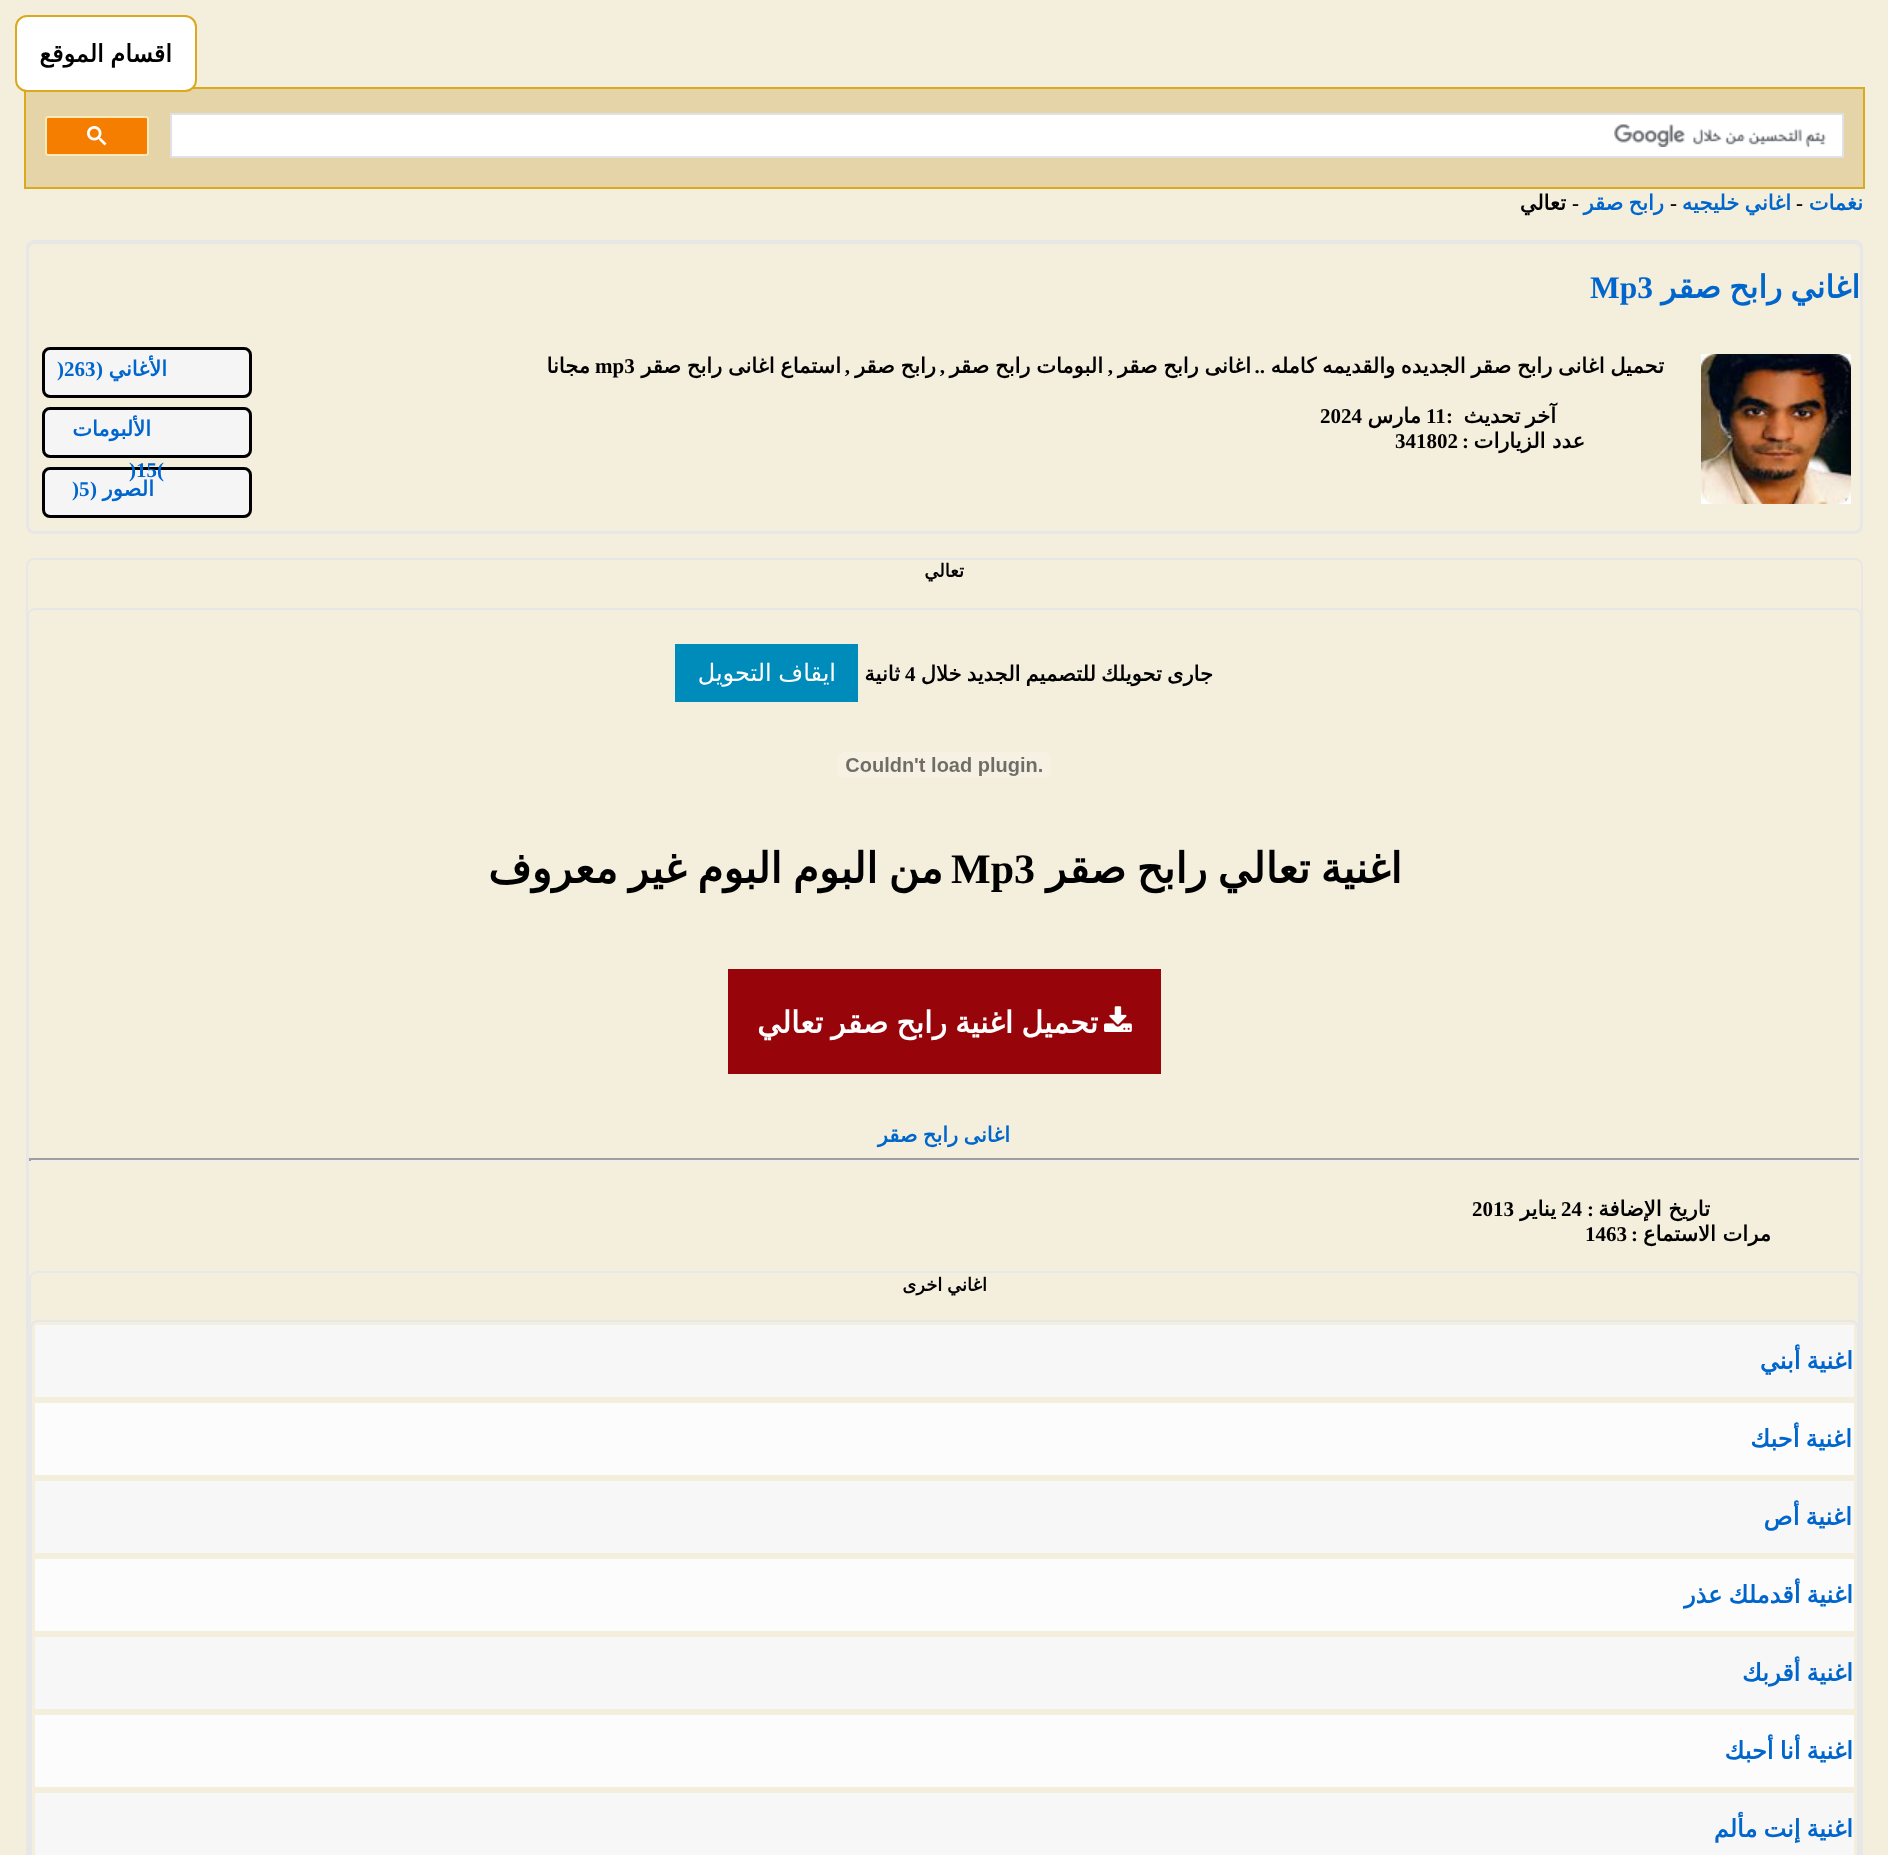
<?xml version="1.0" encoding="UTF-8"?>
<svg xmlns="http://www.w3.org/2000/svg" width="1888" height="1855">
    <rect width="100%" height="100%" fill="#F4EEDD"/>
    <rect x="25" y="88" width="1839" height="100" fill="#E4D4A7" stroke="#DAA91D" stroke-width="2"/>
    <rect x="16" y="16" width="180" height="75" rx="11" fill="#FFFFFF" stroke="#DAA91D" stroke-width="2"/>
    <text x="172" y="62" word-spacing="-1" font-family="DejaVu Sans" font-size="24" font-weight="700" direction="rtl" fill="#000000">اقسام الموقع</text>
    <rect x="171" y="114" width="1672" height="43" fill="#FFFFFF" stroke="#DFE1E5" stroke-width="2"/>
    <image x="1614" y="124" width="212" height="23" href="img_01.png"/>
    <rect x="46" y="117" width="102" height="38" rx="2" fill="#F57D00" stroke="#FBE9B7" stroke-width="2"/>
    <image x="87" y="126" width="20" height="20" href="img_02.png"/>
    <text x="1863" y="210" font-family="DejaVu Sans" font-size="21" font-weight="700" direction="rtl" fill="#0066CC">نغمات</text>
    <text x="1796" y="210" font-family="Liberation Serif" font-size="21" font-weight="700" fill="#000000">-</text>
    <text x="1791" y="210" word-spacing="-1.5" font-family="DejaVu Sans" font-size="21" font-weight="700" direction="rtl" fill="#0066CC">اغاني خليجيه</text>
    <text x="1670" y="210" font-family="Liberation Serif" font-size="21" font-weight="700" fill="#000000">-</text>
    <text x="1664" y="210" word-spacing="-1.5" font-family="DejaVu Sans" font-size="21" font-weight="700" direction="rtl" fill="#0066CC">رابح صقر</text>
    <text x="1579" y="210" font-family="Liberation Serif" font-size="21" font-weight="700" direction="rtl" fill="#000000">-</text>
    <text x="1566" y="210" font-family="DejaVu Sans" font-size="21" font-weight="700" direction="rtl" fill="#000000">تعالي</text>
    <rect x="27" y="241" width="1835" height="292" rx="7" fill="none" stroke="#E7E7E7" stroke-width="2"/>
    <rect x="28" y="243" width="1833" height="289" rx="7" fill="#F4EEDD" stroke="#E7E7E7" stroke-width="2"/>
    <text x="1860" y="298" word-spacing="-2" font-family="DejaVu Sans" font-size="31.5" font-weight="700" direction="rtl" fill="#0066CC">اغاني رابح صقر</text>
    <text x="1590" y="298" font-family="Liberation Serif" font-size="31.5" font-weight="700" fill="#0066CC">Mp3</text>
    <image x="1701" y="354" width="150" height="150" href="img_03.png"/>
    <text x="1664" y="373" word-spacing="-1" font-family="DejaVu Sans" font-size="21" font-weight="700" direction="rtl" fill="#000000">تحميل اغانى رابح صقر الجديده والقديمه كامله</text>
    <text x="1265" y="373" font-family="Liberation Serif" font-size="21" font-weight="700" direction="rtl" fill="#000000">..</text>
    <text x="1251" y="373" word-spacing="-1" font-family="DejaVu Sans" font-size="21" font-weight="700" direction="rtl" fill="#000000">اغانى رابح صقر</text>
    <text x="1113" y="373" font-family="Liberation Serif" font-size="21" font-weight="700" direction="rtl" fill="#000000">,</text>
    <text x="1103" y="373" word-spacing="-1" font-family="DejaVu Sans" font-size="21" font-weight="700" direction="rtl" fill="#000000">البومات رابح صقر</text>
    <text x="945" y="373" font-family="Liberation Serif" font-size="21" font-weight="700" direction="rtl" fill="#000000">,</text>
    <text x="936" y="373" word-spacing="-1" font-family="DejaVu Sans" font-size="21" font-weight="700" direction="rtl" fill="#000000">رابح صقر</text>
    <text x="850" y="373" font-family="Liberation Serif" font-size="21" font-weight="700" direction="rtl" fill="#000000">,</text>
    <text x="841" y="373" word-spacing="-1" font-family="DejaVu Sans" font-size="21" font-weight="700" direction="rtl" fill="#000000">استماع اغانى رابح صقر</text>
    <text x="595" y="373" font-family="Liberation Serif" font-size="21" font-weight="700" fill="#000000">mp3</text>
    <text x="590" y="373" font-family="DejaVu Sans" font-size="21" font-weight="700" direction="rtl" fill="#000000">مجانا</text>
    <text x="1556" y="423" word-spacing="-1.5" font-family="DejaVu Sans" font-size="21" font-weight="700" direction="rtl" fill="#000000">آخر تحديث</text>
    <text x="1446" y="423" font-family="Liberation Serif" font-size="21" font-weight="700" fill="#000000">:</text>
    <text x="1426" y="423" font-family="Liberation Serif" font-size="21" font-weight="700" fill="#000000">11</text>
    <text x="1421" y="423" font-family="DejaVu Sans" font-size="21" font-weight="700" direction="rtl" fill="#000000">مارس</text>
    <text x="1320" y="423" font-family="Liberation Serif" font-size="21" font-weight="700" fill="#000000">2024</text>
    <text x="1585" y="448" font-family="DejaVu Sans" font-size="21" font-weight="700" direction="rtl" fill="#000000">عدد الزيارات</text>
    <text x="1469" y="448" font-family="Liberation Serif" font-size="21" font-weight="700" direction="rtl" fill="#000000">:</text>
    <text x="1395" y="448" font-family="Liberation Serif" font-size="21" font-weight="700" fill="#000000">341802</text>
    <rect x="43.5" y="348.5" width="207" height="48" rx="6.5" fill="#F5F5F5" stroke="#000000" stroke-width="3"/>
    <text x="167" y="376" font-family="DejaVu Sans" font-size="21" font-weight="700" direction="rtl" fill="#0066CC">الأغاني</text>
    <text x="103" y="376" font-family="Liberation Serif" font-size="21" font-weight="700" direction="rtl" fill="#0066CC">(</text>
    <text x="57" y="376" font-family="Liberation Serif" font-size="21" font-weight="700" fill="#0066CC">)263</text>
    <rect x="43.5" y="408.5" width="207" height="48" rx="6.5" fill="#F5F5F5" stroke="#000000" stroke-width="3"/>
    <text x="151" y="436" font-family="DejaVu Sans" font-size="21" font-weight="700" direction="rtl" fill="#0066CC">الألبومات</text>
    <rect x="43.5" y="468.5" width="207" height="48" rx="6.5" fill="#F5F5F5" stroke="#000000" stroke-width="3"/>
    <text x="129" y="477" font-family="Liberation Serif" font-size="21" font-weight="700" fill="#0066CC">)15(</text>
    <text x="154" y="496" font-family="DejaVu Sans" font-size="21" font-weight="700" direction="rtl" fill="#0066CC">الصور</text>
    <text x="97" y="496" font-family="Liberation Serif" font-size="21" font-weight="700" direction="rtl" fill="#0066CC">(</text>
    <text x="72" y="496" font-family="Liberation Serif" font-size="21" font-weight="700" fill="#0066CC">)5</text>
    <rect x="27" y="559" width="1835" height="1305" rx="7" fill="none" stroke="#E7E7E7" stroke-width="2"/>
    <text x="964" y="577" font-family="DejaVu Sans" font-size="18" font-weight="700" direction="rtl" fill="#000000">تعالي</text>
    <rect x="28" y="609" width="1833" height="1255" rx="7" fill="#F4EEDD" stroke="#E7E7E7" stroke-width="2"/>
    <text x="1213" y="681" word-spacing="-1.5" font-family="DejaVu Sans" font-size="21" font-weight="700" direction="rtl" fill="#000000">جارى تحويلك للتصميم الجديد خلال</text>
    <text x="905" y="681" font-family="Liberation Serif" font-size="21" font-weight="700" fill="#000000">4</text>
    <text x="900" y="681" font-family="DejaVu Sans" font-size="21" font-weight="700" direction="rtl" fill="#000000">ثانية</text>
    <rect x="675" y="644" width="183" height="58" fill="#008CBA"/>
    <text x="836" y="681" word-spacing="-1" font-family="DejaVu Sans" font-size="24" direction="rtl" fill="#FFFFFF">ايقاف التحويل</text>
    <image x="837" y="752" width="214" height="26" href="img_04.png"/>
    <text x="1402" y="883" word-spacing="-3" font-family="DejaVu Sans" font-size="42" font-weight="700" direction="rtl" fill="#000000">اغنية تعالي رابح صقر</text>
    <text x="951" y="883" font-family="Liberation Serif" font-size="42" font-weight="700" fill="#000000">Mp3</text>
    <text x="943" y="883" word-spacing="-2.5" font-family="DejaVu Sans" font-size="42" font-weight="700" direction="rtl" fill="#000000">من البوم البوم غير معروف</text>
    <rect x="728" y="969" width="433" height="105" fill="#97050B"/>
    <image x="1104" y="1006" width="28" height="26" href="img_05.png"/>
    <text x="1098" y="1033" word-spacing="-1.5" font-family="DejaVu Sans" font-size="30" font-weight="700" direction="rtl" fill="#FFFFFF">تحميل اغنية رابح صقر تعالي</text>
    <text x="1010" y="1142" word-spacing="-1.5" font-family="DejaVu Sans" font-size="21" font-weight="700" direction="rtl" fill="#0066CC">اغانى رابح صقر</text>
    <rect x="29" y="1158" width="1831" height="2" fill="#9F9F9F"/>
    <rect x="1859" y="1158" width="2" height="3" fill="#EEEEEE"/>
    <rect x="29" y="1160" width="1831" height="2" fill="#EEEEEE"/>
    <rect x="29" y="1158" width="2" height="3" fill="#9F9F9F"/>
    <text x="1710" y="1216" font-family="DejaVu Sans" font-size="21" font-weight="700" direction="rtl" fill="#000000">تاريخ الإضافة</text>
    <text x="1594" y="1216" font-family="Liberation Serif" font-size="21" font-weight="700" direction="rtl" fill="#000000">:</text>
    <text x="1561" y="1216" font-family="Liberation Serif" font-size="21" font-weight="700" fill="#000000">24</text>
    <text x="1556" y="1216" font-family="DejaVu Sans" font-size="21" font-weight="700" direction="rtl" fill="#000000">يناير</text>
    <text x="1472" y="1216" font-family="Liberation Serif" font-size="21" font-weight="700" fill="#000000">2013</text>
    <text x="1771" y="1241" font-family="DejaVu Sans" font-size="21" font-weight="700" direction="rtl" fill="#000000">مرات الاستماع</text>
    <text x="1638" y="1241" font-family="Liberation Serif" font-size="21" font-weight="700" direction="rtl" fill="#000000">:</text>
    <text x="1585" y="1241" font-family="Liberation Serif" font-size="21" font-weight="700" fill="#000000">1463</text>
    <rect x="30" y="1272" width="1829" height="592" rx="7" fill="none" stroke="#E7E7E7" stroke-width="2"/>
    <text x="987" y="1291" word-spacing="-1" font-family="DejaVu Sans" font-size="18" font-weight="700" direction="rtl" fill="#000000">اغاني اخرى</text>
    <rect x="31" y="1321" width="1827" height="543" rx="7" fill="#F4EEDD" stroke="#E7E7E7" stroke-width="2"/>
    <rect x="35" y="1325" width="1819" height="72" fill="#F7F7F7"/>
    <text x="1853" y="1369" word-spacing="-1.5" font-family="DejaVu Sans" font-size="24" font-weight="700" direction="rtl" fill="#0066CC">اغنية أبني</text>
    <rect x="35" y="1403" width="1819" height="72" fill="#FCFCFC"/>
    <text x="1852" y="1447" word-spacing="-1.5" font-family="DejaVu Sans" font-size="24" font-weight="700" direction="rtl" fill="#0066CC">اغنية أحبك</text>
    <rect x="35" y="1481" width="1819" height="72" fill="#F7F7F7"/>
    <text x="1852" y="1525" word-spacing="-1.5" font-family="DejaVu Sans" font-size="24" font-weight="700" direction="rtl" fill="#0066CC">اغنية أص</text>
    <rect x="35" y="1559" width="1819" height="72" fill="#FCFCFC"/>
    <text x="1853" y="1603" word-spacing="-1.5" font-family="DejaVu Sans" font-size="24" font-weight="700" direction="rtl" fill="#0066CC">اغنية أقدملك عذر</text>
    <rect x="35" y="1637" width="1819" height="72" fill="#F7F7F7"/>
    <text x="1853" y="1681" word-spacing="-1.5" font-family="DejaVu Sans" font-size="24" font-weight="700" direction="rtl" fill="#0066CC">اغنية أقربك</text>
    <rect x="35" y="1715" width="1819" height="72" fill="#FCFCFC"/>
    <text x="1853" y="1759" word-spacing="-1.5" font-family="DejaVu Sans" font-size="24" font-weight="700" direction="rtl" fill="#0066CC">اغنية أنا أحبك</text>
    <rect x="35" y="1793" width="1819" height="62" fill="#F7F7F7"/>
    <text x="1853" y="1837" word-spacing="-1.5" font-family="DejaVu Sans" font-size="24" font-weight="700" direction="rtl" fill="#0066CC">اغنية إنت مألم</text>
</svg>
